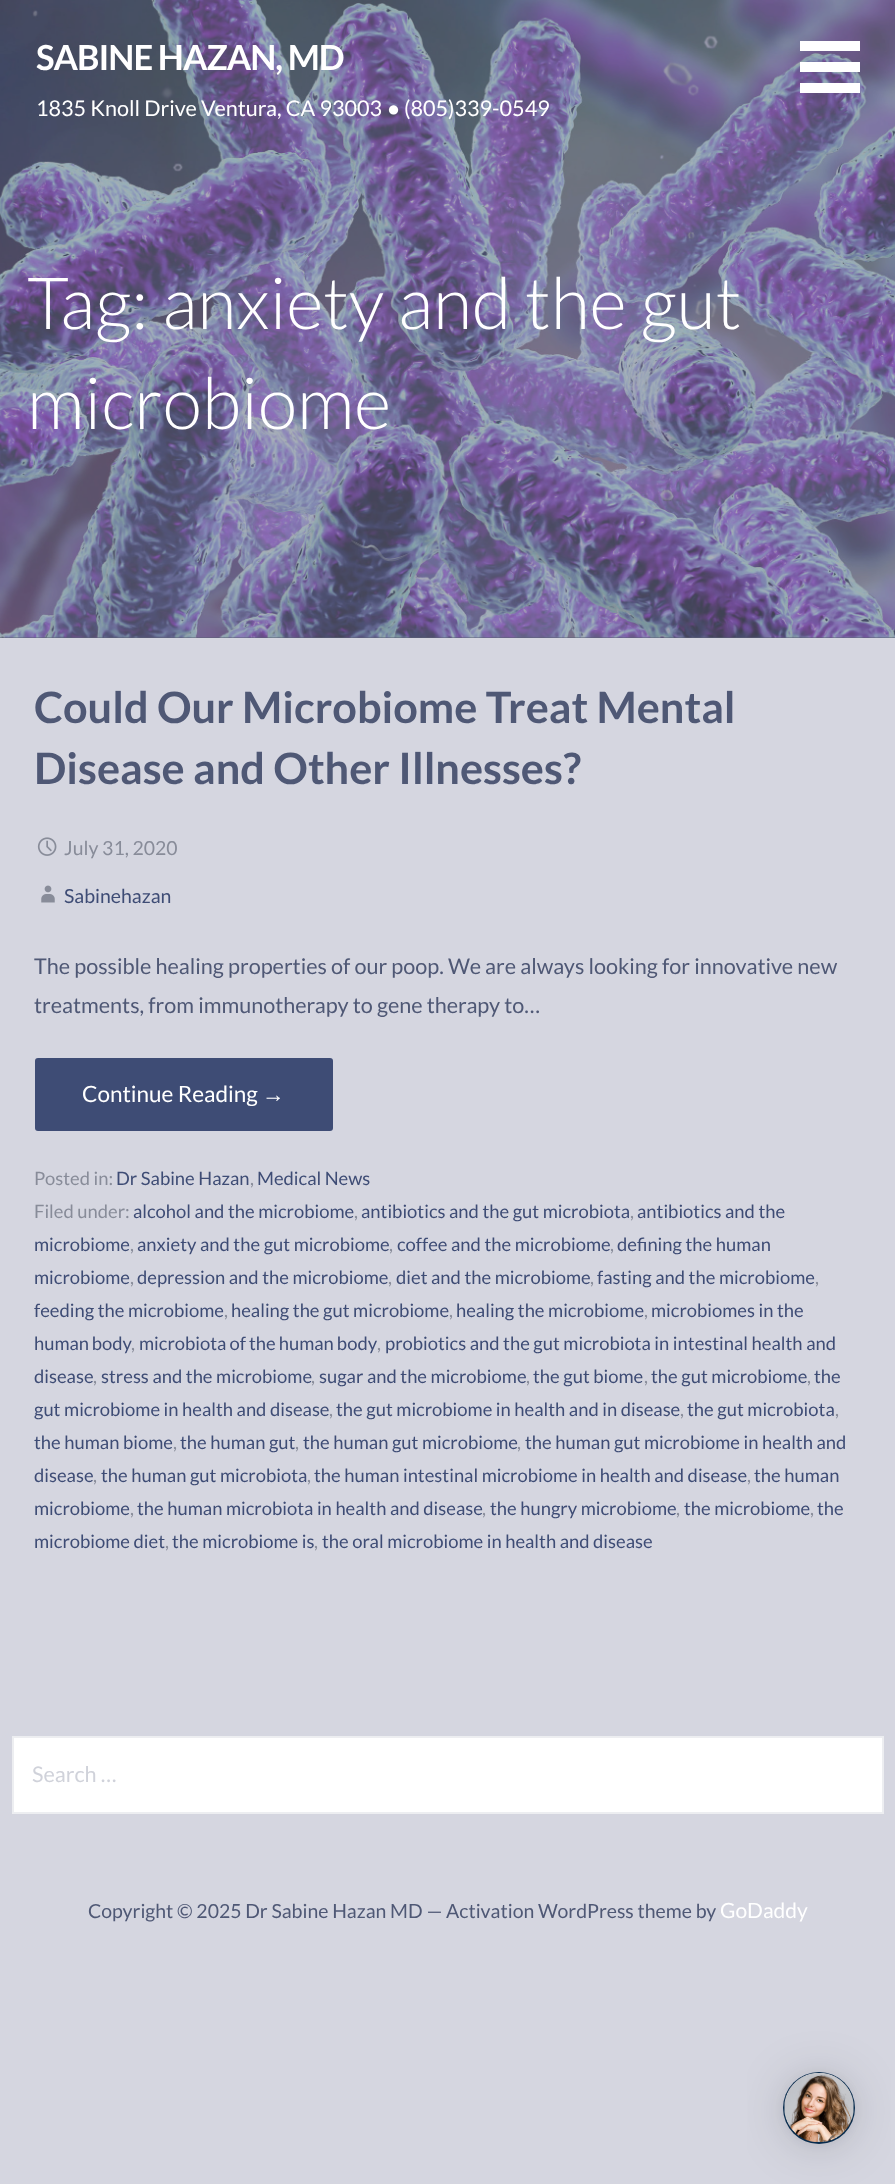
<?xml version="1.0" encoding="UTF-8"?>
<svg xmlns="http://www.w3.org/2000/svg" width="895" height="2184">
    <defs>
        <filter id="blur1" x="-50%" y="-200%" width="200%" height="500%"><feGaussianBlur stdDeviation="24"/></filter>
        <filter id="blur2" x="-50%" y="-200%" width="200%" height="500%"><feGaussianBlur stdDeviation="4.5"/></filter>
    </defs>
    <rect width="100%" height="100%" fill="#D5D6E0"/>
    <rect x="0" y="637" width="895" height="1" fill="#5A6175"/>
    <image x="0" y="0" width="895" height="638" href="img_01.png"/>
    <text x="36" y="70" font-family="Lato" font-size="34.5" font-weight="700" letter-spacing="-1" fill="#FFFFFF">SABINE HAZAN, MD</text>
    <text x="36" y="116" font-family="Lato" font-size="21.6" fill="#FFFFFF">1835 Knoll Drive Ventura, CA 93003</text>
    <text x="387" y="116" font-family="Liberation Sans" font-size="21.6" fill="#FFFFFF">●</text>
    <text x="404" y="116" font-family="Lato" font-size="21.6" fill="#FFFFFF">(805)339-0549</text>
    <text font-family="Lato" font-size="72" font-weight="300" fill="#FFFFFF">
        <tspan x="27" y="329">Tag: anxiety and the gut</tspan>
        <tspan x="27" y="429">microbiome</tspan>
    </text>
    <rect x="800" y="41" width="60" height="10" fill="#FFFFFF"/>
    <rect x="800" y="62" width="60" height="10" fill="#FFFFFF"/>
    <rect x="800" y="83" width="60" height="10" fill="#FFFFFF"/>
    <text font-family="Lato" font-size="43.25" font-weight="700" fill="#4F5875">
        <tspan x="34" y="723">Could Our Microbiome Treat Mental</tspan>
        <tspan x="34" y="784">Disease and Other Illnesses?</tspan>
    </text>
    <image x="37" y="837" width="20" height="19" href="img_02.png"/>
    <text x="64" y="855" font-family="Lato" font-size="19.45" fill="#888C99">July 31, 2020</text>
    <image x="41" y="885" width="14" height="18" href="img_03.png"/>
    <text x="64" y="903" font-family="Lato" font-size="19.45" fill="#3E4C75">Sabinehazan</text>
    <text font-family="Lato" font-size="21.6" fill="#4F5875">
        <tspan x="34" y="974">The possible healing properties of our poop. We are always looking for innovative new</tspan>
        <tspan x="34" y="1013">treatments, from immunotherapy to gene therapy to…</tspan>
    </text>
    <rect x="35" y="1058" width="298" height="73" rx="3" fill="#3E4C75"/>
    <text x="82" y="1102" font-family="Lato" font-size="22.5" fill="#FFFFFF">Continue Reading</text>
    <text x="262" y="1102" font-family="Liberation Sans" font-size="22.5" fill="#FFFFFF">→</text>
    <text x="34" y="1185" font-family="Lato" font-size="18.4" fill="#888C99">Posted in:</text>
    <text x="116" y="1185" font-family="Lato" font-size="18.4" fill="#3E4C75">Dr Sabine Hazan</text>
    <text x="250" y="1185" font-family="Lato" font-size="18.4" fill="#888C99">,</text>
    <text x="257" y="1185" font-family="Lato" font-size="18.4" fill="#3E4C75">Medical News</text>
    <text x="34" y="1218" font-family="Lato" font-size="18.4" fill="#888C99">Filed under:</text>
    <text x="133" y="1218" font-family="Lato" font-size="18.4" fill="#3E4C75">alcohol and the microbiome</text>
    <text x="354" y="1218" font-family="Lato" font-size="18.4" fill="#888C99">,</text>
    <text x="361" y="1218" font-family="Lato" font-size="18.4" fill="#3E4C75">antibiotics and the gut microbiota</text>
    <text x="630" y="1218" font-family="Lato" font-size="18.4" fill="#888C99">,</text>
    <text x="637" y="1218" font-family="Lato" font-size="18.4" fill="#3E4C75">antibiotics and the</text>
    <text x="34" y="1251" font-family="Lato" font-size="18.4" fill="#3E4C75">microbiome</text>
    <text x="130" y="1251" font-family="Lato" font-size="18.4" fill="#888C99">,</text>
    <text x="137" y="1251" font-family="Lato" font-size="18.4" fill="#3E4C75">anxiety and the gut microbiome</text>
    <text x="389" y="1251" font-family="Lato" font-size="18.4" fill="#888C99">,</text>
    <text x="397" y="1251" font-family="Lato" font-size="18.4" fill="#3E4C75">coffee and the microbiome</text>
    <text x="610" y="1251" font-family="Lato" font-size="18.4" fill="#888C99">,</text>
    <text x="617" y="1251" font-family="Lato" font-size="18.4" fill="#3E4C75">defining the human</text>
    <text x="34" y="1284" font-family="Lato" font-size="18.4" fill="#3E4C75">microbiome</text>
    <text x="130" y="1284" font-family="Lato" font-size="18.4" fill="#888C99">,</text>
    <text x="137" y="1284" font-family="Lato" font-size="18.4" fill="#3E4C75">depression and the microbiome</text>
    <text x="388" y="1284" font-family="Lato" font-size="18.4" fill="#888C99">,</text>
    <text x="396" y="1284" font-family="Lato" font-size="18.4" fill="#3E4C75">diet and the microbiome</text>
    <text x="590" y="1284" font-family="Lato" font-size="18.4" fill="#888C99">,</text>
    <text x="597" y="1284" font-family="Lato" font-size="18.4" fill="#3E4C75">fasting and the microbiome</text>
    <text x="815" y="1284" font-family="Lato" font-size="18.4" fill="#888C99">,</text>
    <text x="34" y="1317" font-family="Lato" font-size="18.4" fill="#3E4C75">feeding the microbiome</text>
    <text x="224" y="1317" font-family="Lato" font-size="18.4" fill="#888C99">,</text>
    <text x="231" y="1317" font-family="Lato" font-size="18.4" fill="#3E4C75">healing the gut microbiome</text>
    <text x="449" y="1317" font-family="Lato" font-size="18.4" fill="#888C99">,</text>
    <text x="456" y="1317" font-family="Lato" font-size="18.4" fill="#3E4C75">healing the microbiome</text>
    <text x="644" y="1317" font-family="Lato" font-size="18.4" fill="#888C99">,</text>
    <text x="651" y="1317" font-family="Lato" font-size="18.4" fill="#3E4C75">microbiomes in the</text>
    <text x="34" y="1350" word-spacing="-1" font-family="Lato" font-size="18.4" fill="#3E4C75">human body</text>
    <text x="131" y="1350" font-family="Lato" font-size="18.4" fill="#888C99">,</text>
    <text x="139" y="1350" word-spacing="-0.5" font-family="Lato" font-size="18.4" fill="#3E4C75">microbiota of the human body</text>
    <text x="377" y="1350" font-family="Lato" font-size="18.4" fill="#888C99">,</text>
    <text x="385" y="1350" font-family="Lato" font-size="18.4" fill="#3E4C75">probiotics and the gut microbiota in intestinal health and</text>
    <text x="34" y="1383" font-family="Lato" font-size="18.4" fill="#3E4C75">disease</text>
    <text x="93" y="1383" font-family="Lato" font-size="18.4" fill="#888C99">,</text>
    <text x="101" y="1383" font-family="Lato" font-size="18.4" fill="#3E4C75">stress and the microbiome</text>
    <text x="311" y="1383" font-family="Lato" font-size="18.4" fill="#888C99">,</text>
    <text x="319" y="1383" font-family="Lato" font-size="18.4" fill="#3E4C75">sugar and the microbiome</text>
    <text x="526" y="1383" font-family="Lato" font-size="18.4" fill="#888C99">,</text>
    <text x="533" y="1383" font-family="Lato" font-size="18.4" fill="#3E4C75">the gut biome</text>
    <text x="644" y="1383" font-family="Lato" font-size="18.4" fill="#888C99">,</text>
    <text x="651" y="1383" font-family="Lato" font-size="18.4" fill="#3E4C75">the gut microbiome</text>
    <text x="807" y="1383" font-family="Lato" font-size="18.4" fill="#888C99">,</text>
    <text x="814" y="1383" font-family="Lato" font-size="18.4" fill="#3E4C75">the</text>
    <text x="34" y="1416" font-family="Lato" font-size="18.4" fill="#3E4C75">gut microbiome in health and disease</text>
    <text x="329" y="1416" font-family="Lato" font-size="18.4" fill="#888C99">,</text>
    <text x="336" y="1416" font-family="Lato" font-size="18.4" fill="#3E4C75">the gut microbiome in health and in disease</text>
    <text x="680" y="1416" font-family="Lato" font-size="18.4" fill="#888C99">,</text>
    <text x="687" y="1416" font-family="Lato" font-size="18.4" fill="#3E4C75">the gut microbiota</text>
    <text x="835" y="1416" font-family="Lato" font-size="18.4" fill="#888C99">,</text>
    <text x="34" y="1449" font-family="Lato" font-size="18.4" fill="#3E4C75">the human biome</text>
    <text x="173" y="1449" font-family="Lato" font-size="18.4" fill="#888C99">,</text>
    <text x="180" y="1449" font-family="Lato" font-size="18.4" fill="#3E4C75">the human gut</text>
    <text x="295" y="1449" font-family="Lato" font-size="18.4" fill="#888C99">,</text>
    <text x="303" y="1449" font-family="Lato" font-size="18.4" fill="#3E4C75">the human gut microbiome</text>
    <text x="517" y="1449" font-family="Lato" font-size="18.4" fill="#888C99">,</text>
    <text x="525" y="1449" font-family="Lato" font-size="18.4" fill="#3E4C75">the human gut microbiome in health and</text>
    <text x="34" y="1482" font-family="Lato" font-size="18.4" fill="#3E4C75">disease</text>
    <text x="93" y="1482" font-family="Lato" font-size="18.4" fill="#888C99">,</text>
    <text x="101" y="1482" font-family="Lato" font-size="18.4" fill="#3E4C75">the human gut microbiota</text>
    <text x="307" y="1482" font-family="Lato" font-size="18.4" fill="#888C99">,</text>
    <text x="314" y="1482" font-family="Lato" font-size="18.4" fill="#3E4C75">the human intestinal microbiome in health and disease</text>
    <text x="747" y="1482" font-family="Lato" font-size="18.4" fill="#888C99">,</text>
    <text x="754" y="1482" font-family="Lato" font-size="18.4" fill="#3E4C75">the human</text>
    <text x="34" y="1515" font-family="Lato" font-size="18.4" fill="#3E4C75">microbiome</text>
    <text x="130" y="1515" font-family="Lato" font-size="18.4" fill="#888C99">,</text>
    <text x="137" y="1515" font-family="Lato" font-size="18.4" fill="#3E4C75">the human microbiota in health and disease</text>
    <text x="482" y="1515" font-family="Lato" font-size="18.4" fill="#888C99">,</text>
    <text x="490" y="1515" font-family="Lato" font-size="18.4" fill="#3E4C75">the hungry microbiome</text>
    <text x="676" y="1515" font-family="Lato" font-size="18.4" fill="#888C99">,</text>
    <text x="684" y="1515" font-family="Lato" font-size="18.4" fill="#3E4C75">the microbiome</text>
    <text x="810" y="1515" font-family="Lato" font-size="18.4" fill="#888C99">,</text>
    <text x="817" y="1515" font-family="Lato" font-size="18.4" fill="#3E4C75">the</text>
    <text x="34" y="1548" font-family="Lato" font-size="18.4" fill="#3E4C75">microbiome diet</text>
    <text x="165" y="1548" font-family="Lato" font-size="18.4" fill="#888C99">,</text>
    <text x="172" y="1548" font-family="Lato" font-size="18.4" fill="#3E4C75">the microbiome is</text>
    <text x="314" y="1548" font-family="Lato" font-size="18.4" fill="#888C99">,</text>
    <text x="322" y="1548" font-family="Lato" font-size="18.4" fill="#3E4C75">the oral microbiome in health and disease</text>
    <rect x="13" y="1737" width="870" height="76" fill="#FFFFFF" stroke="#EDEEF1" stroke-width="2"/>
    <text x="32" y="1782" font-family="Lato" font-size="21.6" fill="#D0D2DA">Search …</text>
    <text x="88" y="1918" font-family="Lato" font-size="19.45" fill="#4F5875">Copyright © 2025 Dr Sabine Hazan MD — Activation WordPress theme by</text>
    <text x="720" y="1918" font-family="Lato" font-size="21" fill="#FFFFFF">GoDaddy</text>
    <rect x="783" y="2075" width="72" height="72" rx="36" fill="#000000" fill-opacity="0.16" filter="url(#blur1)"/>
    <rect x="783" y="2073" width="72" height="72" rx="36" fill="#000000" fill-opacity="0.06" filter="url(#blur2)"/>
    <circle cx="819" cy="2108" r="36" fill="#072B4D"/>
    <image x="784" y="2073" width="70" height="69" href="img_04.png"/>
</svg>
